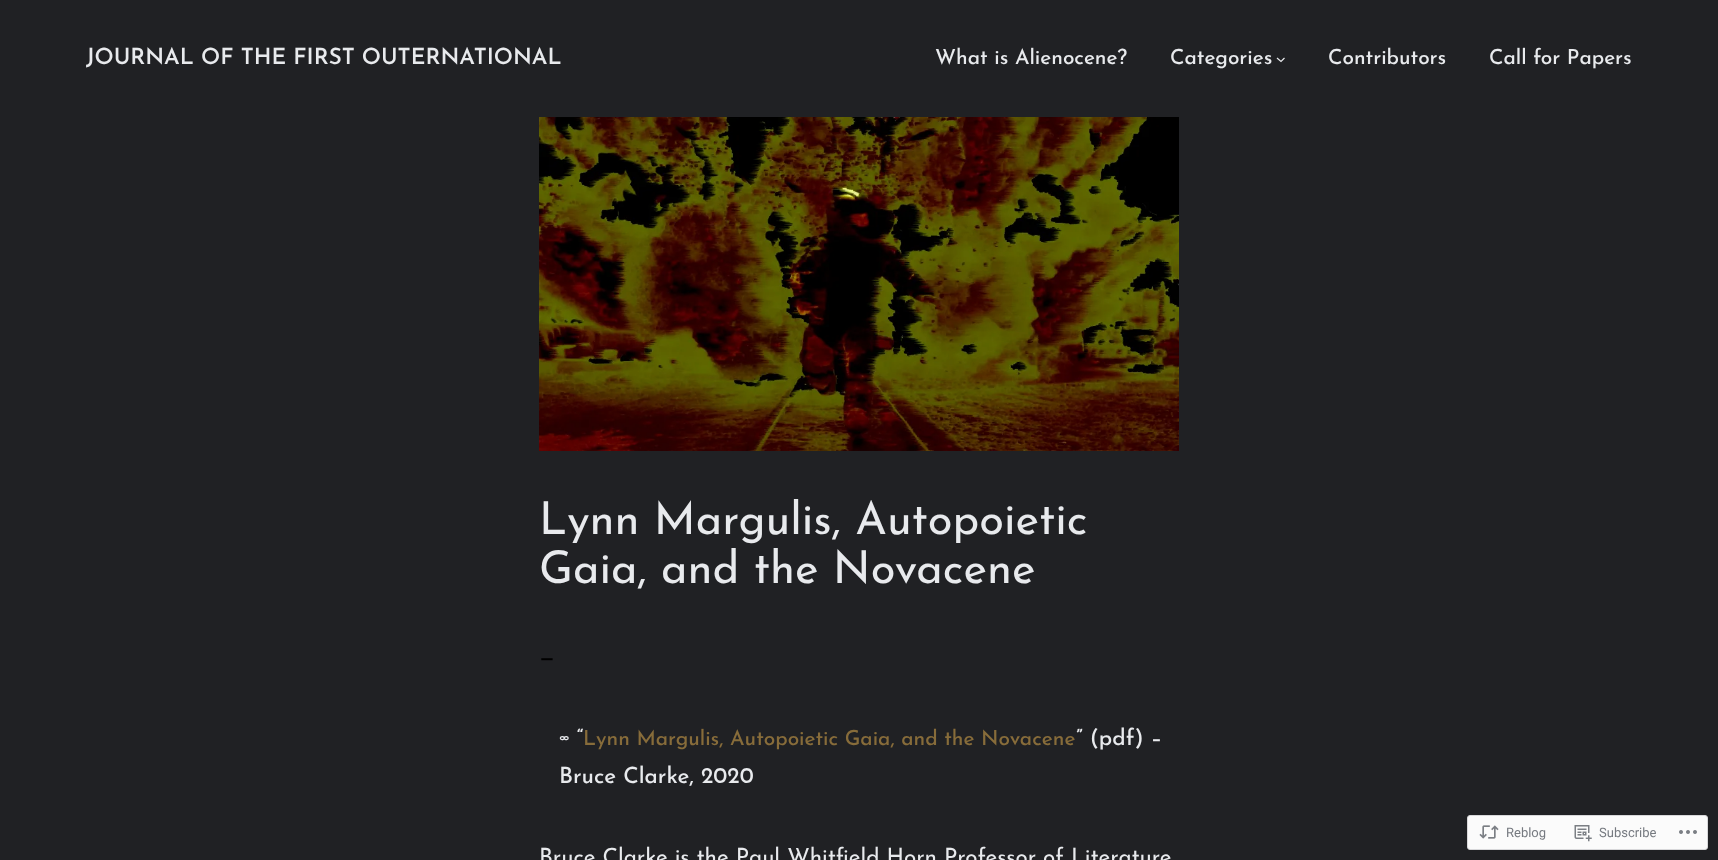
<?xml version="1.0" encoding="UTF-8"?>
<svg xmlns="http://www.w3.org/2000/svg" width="1718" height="860">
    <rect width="100%" height="100%" fill="#202124"/>
    <text x="86" y="64" font-family="Josefin Sans" font-size="22.4" font-weight="600" fill="#E8EAED">JOURNAL OF THE FIRST OUTERNATIONAL</text>
    <text x="935" y="64" font-family="Josefin Sans" font-size="20.8" font-weight="500" fill="#E8EAED">What is Alienocene?</text>
    <text x="1170" y="64" font-family="Josefin Sans" font-size="20.8" font-weight="500" fill="#E8EAED">Categories</text>
    <path d="M 1277 58 L 1281 61.5 L 1284.5 58" fill="none" stroke="#E8EAED" stroke-width="1.2"/>
    <text x="1328" y="64" font-family="Josefin Sans" font-size="20.8" font-weight="500" fill="#E8EAED">Contributors</text>
    <text x="1489" y="64" font-family="Josefin Sans" font-size="20.8" font-weight="500" fill="#E8EAED">Call for Papers</text>
    <image x="539" y="117" width="640" height="334" href="img_01.png"/>
    <text font-family="Josefin Sans" font-size="45.25" fill="#E8EAED">
        <tspan x="539" y="534">Lynn Margulis, Autopoietic</tspan>
        <tspan x="539" y="583">Gaia, and the Novacene</tspan>
    </text>
    <text x="539" y="664" font-family="Josefin Sans" font-size="22.4" font-weight="500" fill="#000000">—</text>
    <text x="559" y="745" font-family="Josefin Sans" font-size="22.4" font-weight="500" fill="#E8EAED">∞ “</text>
    <text x="583" y="745" font-family="Josefin Sans" font-size="20.8" font-weight="500" fill="#876C3A">Lynn Margulis, Autopoietic Gaia, and the Novacene</text>
    <text x="1076" y="745" font-family="Josefin Sans" font-size="22.4" font-weight="500" fill="#E8EAED">” (pdf) –</text>
    <text x="559" y="783" font-family="Josefin Sans" font-size="22.4" font-weight="500" fill="#E8EAED">Bruce Clarke, 2020</text>
    <text x="539" y="864" font-family="Josefin Sans" font-size="22.4" fill="#E8EAED">Bruce Clarke is the Paul Whitfield Horn Professor of Literature</text>
    <rect x="1467.5" y="815.5" width="240" height="34" rx="2.5" fill="#FBFBFB" stroke="#D8D8DA"/>
    <image x="1479" y="825" width="20" height="14" href="img_02.png"/>
    <text x="1506" y="837" font-family="Roboto" font-size="13" fill="#767A80">Reblog</text>
    <image x="1574" y="825" width="18" height="17" href="img_03.png"/>
    <text x="1599" y="837" font-family="Roboto" font-size="13" fill="#767A80">Subscribe</text>
    <image x="1679" y="830" width="18" height="4" href="img_04.png"/>
</svg>
